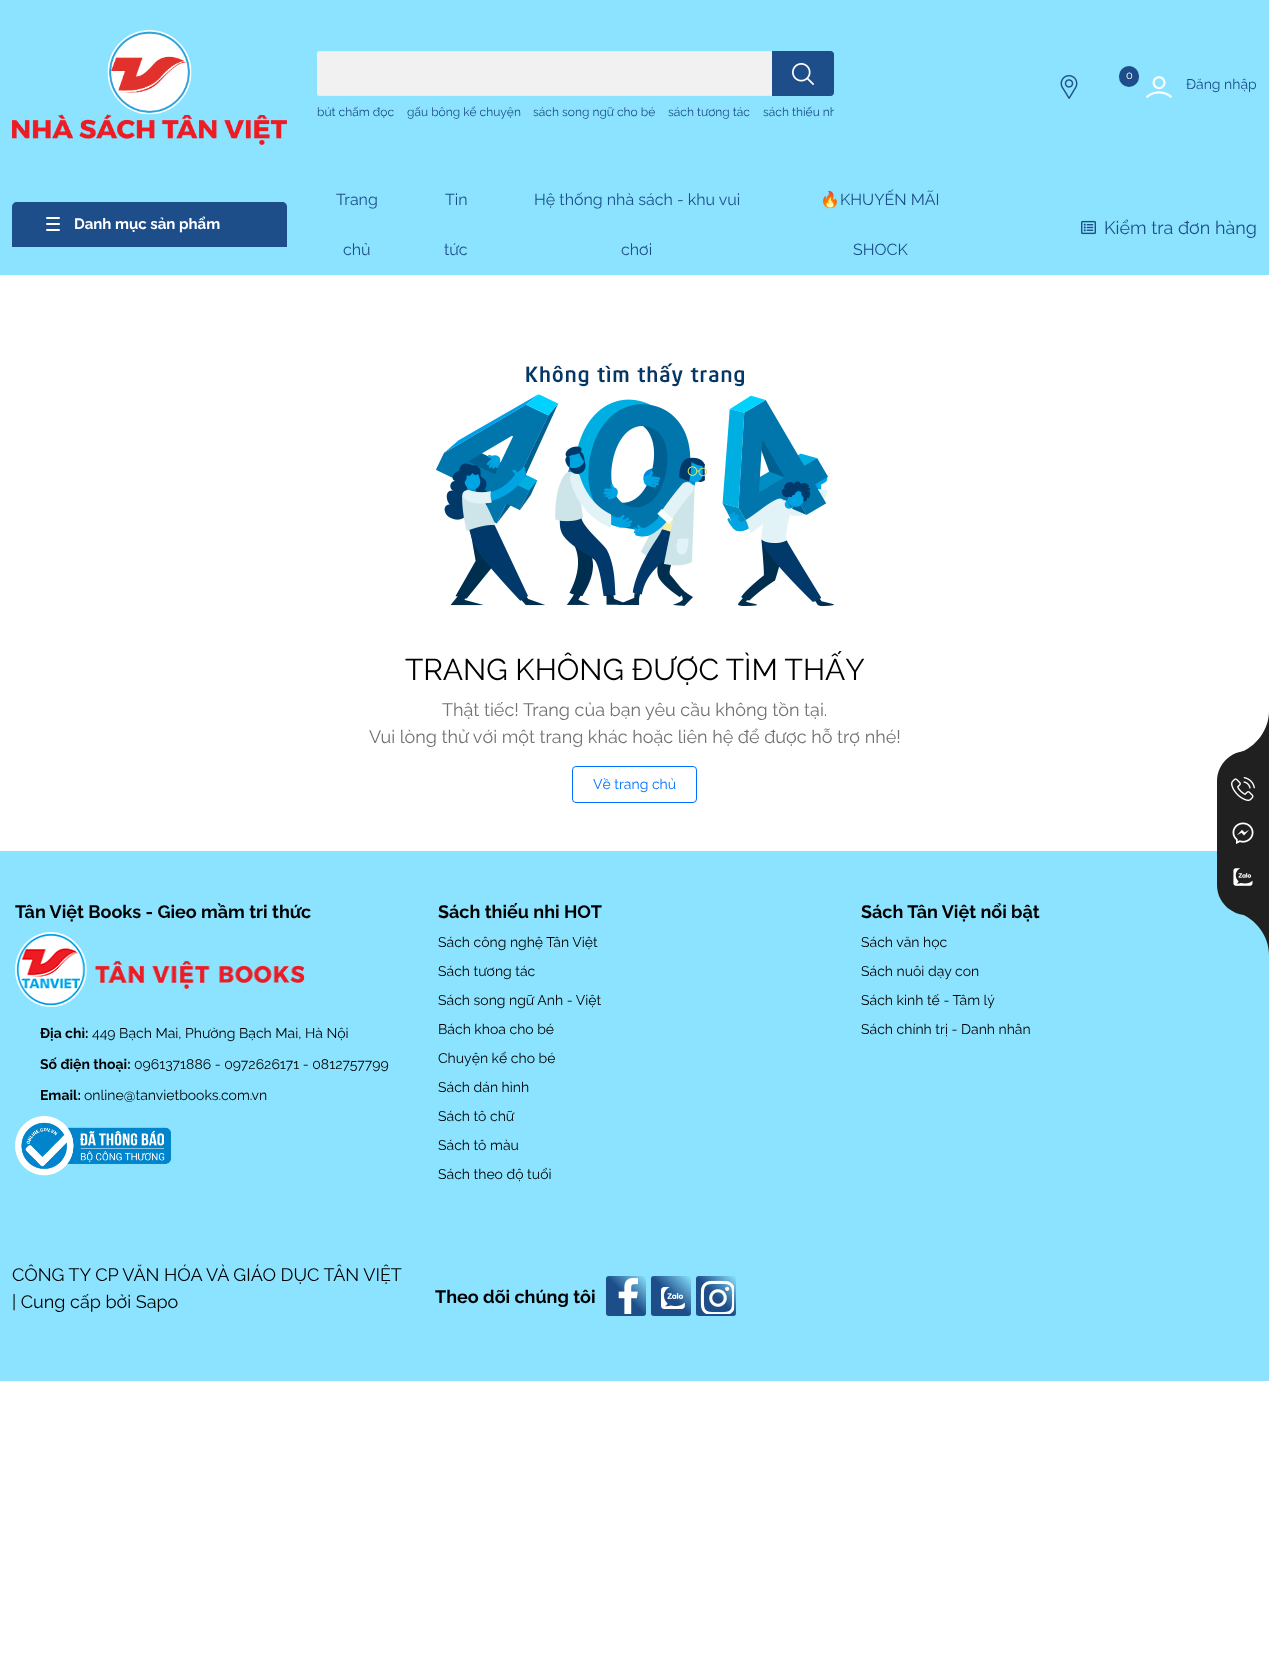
<?xml version="1.0" encoding="UTF-8"?>
<svg xmlns="http://www.w3.org/2000/svg" width="1269" height="1666">
    <defs>
        <clipPath id="clip1"><rect x="317" y="96" width="517" height="27"/></clipPath>
        <linearGradient id="g1" gradientUnits="userSpaceOnUse" x1="606" y1="1316" x2="646" y2="1276"><stop offset="0" stop-color="#1D4E89"/><stop offset="0.5" stop-color="#1D4E89"/><stop offset="1" stop-color="#8BE3FF"/></linearGradient>
        <linearGradient id="g2" gradientUnits="userSpaceOnUse" x1="651" y1="1316" x2="691" y2="1276"><stop offset="0" stop-color="#1D4E89"/><stop offset="0.5" stop-color="#1D4E89"/><stop offset="1" stop-color="#8BE3FF"/></linearGradient>
        <linearGradient id="g3" gradientUnits="userSpaceOnUse" x1="696" y1="1316" x2="736" y2="1276"><stop offset="0" stop-color="#1D4E89"/><stop offset="0.5" stop-color="#1D4E89"/><stop offset="1" stop-color="#8BE3FF"/></linearGradient>
    </defs>
    <rect width="100%" height="100%" fill="#FFFFFF"/>
    <rect x="0" y="0" width="1269" height="275" fill="#8BE3FF"/>
    <image x="12" y="30" width="275" height="115" href="img_01.png"/>
    <image x="1060" y="75" width="18" height="24" href="img_02.png"/>
    <rect x="1119" y="66" width="20" height="21" rx="10" fill="#1D4E89"/>
    <text x="1126" y="79" font-family="Raleway" font-size="11" fill="#FFFFFF">0</text>
    <image x="1146" y="76" width="26" height="22" href="img_03.png"/>
    <text x="1186" y="89" font-family="Raleway" font-size="14" fill="#1D4E89">Đăng nhập</text>
    <rect x="317" y="51" width="517" height="45" rx="3" fill="#F1F1F1"/>
    <path d="M 320 51 H 831 C 833 51 834 52 834 54 V 93 C 834 95 833 96 831 96 H 320 C 318 96 317 95 317 93 V 54 C 317 52 318 51 320 51 Z M 320 52 H 831 C 832 52 833 53 833 54 V 93 C 833 94 832 95 831 95 H 320 C 318 95 317 94 317 93 V 54 C 317 53 318 52 320 52 Z" fill="#EBEBEB" fill-rule="evenodd"/>
    <path d="M 772 51 H 831 C 832.5 51 834 52.5 834 54 V 93 C 834 94.5 832.5 96 831 96 H 772 Z" fill="#1D4E89"/>
    <image x="792" y="63" width="22" height="22" href="img_04.png"/>
    <text x="317" y="116" font-family="Raleway" font-size="12" fill="#1D4E89">bút chấm đọc</text>
    <text x="407" y="116" font-family="Raleway" font-size="12" fill="#1D4E89">gấu bông kể chuyện</text>
    <text x="533" y="116" font-family="Raleway" font-size="12" fill="#1D4E89">sách song ngữ cho bé</text>
    <text x="668" y="116" font-family="Raleway" font-size="12" fill="#1D4E89">sách tương tác</text>
    <g clip-path="url(#clip1)">
        <text x="763" y="116" font-family="Raleway" font-size="12" fill="#1D4E89">sách thiếu nh</text>
    </g>
    <path d="M 17 202 H 282 C 285 202 287 204 287 207 V 247 H 12 V 207 C 12 204 14 202 17 202 Z" fill="#1D4E89"/>
    <rect x="46" y="217" width="14" height="2" rx="1" fill="#FFFFFF"/>
    <rect x="46" y="223" width="14" height="2" rx="1" fill="#FFFFFF"/>
    <rect x="46" y="229" width="14" height="2" rx="1" fill="#FFFFFF"/>
    <text x="74" y="229" font-family="Raleway" font-size="15" font-weight="700" fill="#FFFFFF">Danh mục sản phẩm</text>
    <text x="336" y="205" font-family="Raleway" font-size="16" fill="#1D4E89">Trang</text>
    <text x="343" y="255" font-family="Raleway" font-size="16" fill="#1D4E89">chủ</text>
    <text x="445" y="205" font-family="Raleway" font-size="16" fill="#1D4E89">Tin</text>
    <text x="444" y="255" font-family="Raleway" font-size="16" fill="#1D4E89">tức</text>
    <text x="534" y="205" font-family="Raleway" font-size="16" fill="#1D4E89">Hệ thống nhà sách - khu vui</text>
    <text x="621" y="255" font-family="Raleway" font-size="16" fill="#1D4E89">chơi</text>
    <text x="820" y="205" font-family="Noto Color Emoji" font-size="16" fill="#1D4E89">🔥</text>
    <text x="840" y="205" font-family="Raleway" font-size="16" fill="#1D4E89">KHUYẾN MÃI</text>
    <text x="853" y="255" font-family="Raleway" font-size="16" fill="#1D4E89">SHOCK</text>
    <image x="1081" y="220" width="15" height="15" href="img_05.png"/>
    <text x="1104" y="234" font-family="Raleway" font-size="18" fill="#1D4E89">Kiểm tra đơn hàng</text>
    <image x="436" y="363" width="398" height="243" href="img_06.png"/>
    <text x="405" y="680" font-family="Raleway" font-size="30" fill="#000000">TRANG KHÔNG ĐƯỢC TÌM THẤY</text>
    <text x="442" y="716" font-family="Raleway" font-size="18" fill="#727272">Thật tiếc! Trang của bạn yêu cầu không tồn tại.</text>
    <text x="369" y="743" font-family="Raleway" font-size="18" fill="#727272">Vui lòng thử với một trang khác hoặc liên hệ để được hỗ trợ nhé!</text>
    <rect x="572.5" y="766.5" width="124" height="36" rx="3.5" fill="none" stroke="#0071FE"/>
    <text x="593" y="789" font-family="Raleway" font-size="14" fill="#0071FE">Về trang chủ</text>
    <rect x="0" y="851" width="1269" height="530" fill="#8BE3FF"/>
    <path d="M 1247 751 H 1269 V 915 H 1247 C 1230.5 915 1217 901.5 1217 885 V 781 C 1217 764.5 1230.5 751 1247 751 Z" fill="#202020"/>
    <path d="M 1239 753 V 755 H 1255 C 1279 755 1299 735 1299 711 H 1269 C 1269 730 1256 747 1239 753 Z" fill="#202020"/>
    <image x="1231" y="777" width="24" height="24" href="img_07.png"/>
    <image x="1232" y="822" width="22" height="22" href="img_08.png"/>
    <image x="1233" y="868" width="20" height="18" href="img_09.png"/>
    <path d="M 1239 911 V 913 C 1256 919 1269 936 1269 955 H 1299 C 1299 931 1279 911 1255 911 Z" fill="#202020"/>
    <text x="15" y="918" font-family="Raleway" font-size="18" font-weight="700" fill="#000000">Tân Việt Books - Gieo mầm tri thức</text>
    <image x="15" y="932" width="290" height="75" href="img_10.png"/>
    <text x="40" y="1038" font-family="Raleway" font-size="14" font-weight="700" fill="#000000">Địa chỉ:</text>
    <text x="92" y="1038" font-family="Raleway" font-size="14" fill="#000000">449 Bạch Mai, Phường Bạch Mai, Hà Nội</text>
    <text x="40" y="1069" font-family="Raleway" font-size="14" font-weight="700" fill="#000000">Số điện thoại:</text>
    <text x="134" y="1069" font-family="Raleway" font-size="14" fill="#000000">0961371886 - 0972626171 - 0812757799</text>
    <text x="40" y="1100" font-family="Raleway" font-size="14" font-weight="700" fill="#000000">Email:</text>
    <text x="84" y="1100" font-family="Raleway" font-size="14" fill="#000000">online@tanvietbooks.com.vn</text>
    <image x="15" y="1116" width="156" height="60" href="img_11.png"/>
    <text x="438" y="918" font-family="Raleway" font-size="18" font-weight="700" fill="#000000">Sách thiếu nhi HOT</text>
    <text x="438" y="947" font-family="Raleway" font-size="14" fill="#000000">Sách công nghệ Tân Việt</text>
    <text x="438" y="976" font-family="Raleway" font-size="14" fill="#000000">Sách tương tác</text>
    <text x="438" y="1005" font-family="Raleway" font-size="14" fill="#000000">Sách song ngữ Anh - Việt</text>
    <text x="438" y="1034" font-family="Raleway" font-size="14" fill="#000000">Bách khoa cho bé</text>
    <text x="438" y="1063" font-family="Raleway" font-size="14" fill="#000000">Chuyện kể cho bé</text>
    <text x="438" y="1092" font-family="Raleway" font-size="14" fill="#000000">Sách dán hình</text>
    <text x="438" y="1121" font-family="Raleway" font-size="14" fill="#000000">Sách tô chữ</text>
    <text x="438" y="1150" font-family="Raleway" font-size="14" fill="#000000">Sách tô màu</text>
    <text x="438" y="1179" font-family="Raleway" font-size="14" fill="#000000">Sách theo độ tuổi</text>
    <text x="861" y="918" font-family="Raleway" font-size="18" font-weight="700" fill="#000000">Sách Tân Việt nổi bật</text>
    <text x="861" y="947" font-family="Raleway" font-size="14" fill="#000000">Sách văn học</text>
    <text x="861" y="976" font-family="Raleway" font-size="14" fill="#000000">Sách nuôi dạy con</text>
    <text x="861" y="1005" font-family="Raleway" font-size="14" fill="#000000">Sách kinh tế - Tâm lý</text>
    <text x="861" y="1034" font-family="Raleway" font-size="14" fill="#000000">Sách chính trị - Danh nhân</text>
    <text font-family="Raleway" font-size="18" fill="#000000">
        <tspan x="12" y="1281">CÔNG TY CP VĂN HÓA VÀ GIÁO DỤC TÂN VIỆT</tspan>
        <tspan x="12" y="1308">| Cung cấp bởi Sapo</tspan>
    </text>
    <text x="435" y="1303" font-family="Raleway" font-size="18" font-weight="700" fill="#000000">Theo dõi chúng tôi</text>
    <rect x="606" y="1276" width="40" height="40" rx="3" fill="url(#g1)"/>
    <image x="618" y="1278" width="20" height="36" href="img_12.png"/>
    <rect x="651" y="1276" width="40" height="40" rx="3" fill="url(#g2)"/>
    <image x="661" y="1287" width="24" height="22" href="img_13.png"/>
    <rect x="696" y="1276" width="40" height="40" rx="3" fill="url(#g3)"/>
    <image x="700" y="1280" width="34" height="34" href="img_14.png"/>
</svg>
